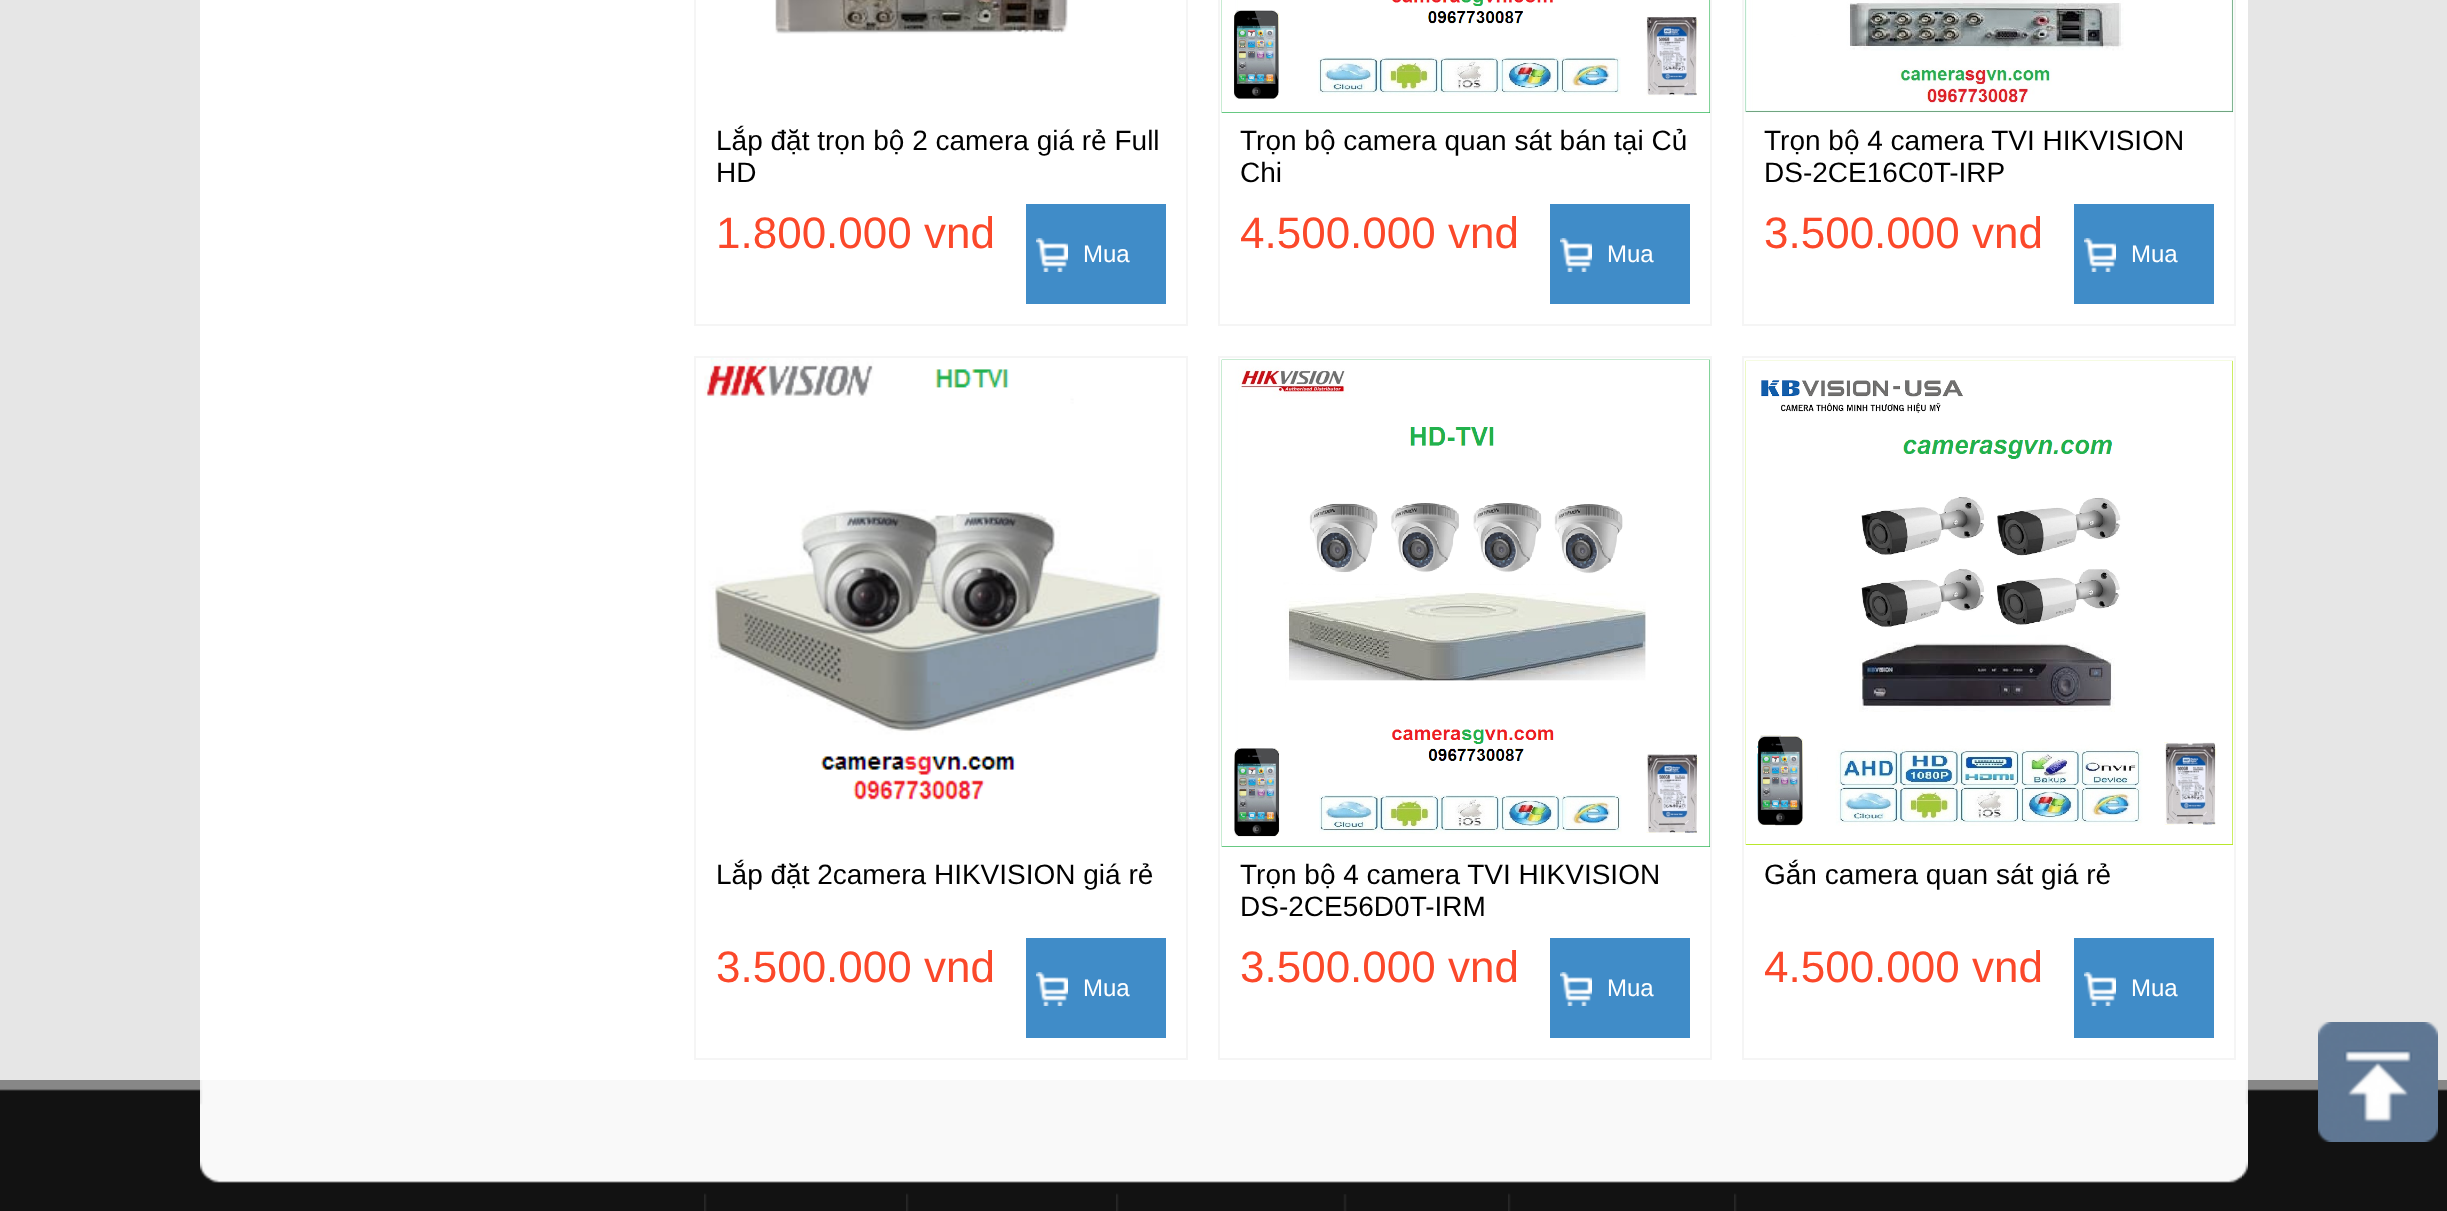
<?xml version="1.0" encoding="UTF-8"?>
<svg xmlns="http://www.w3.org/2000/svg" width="2447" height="1211">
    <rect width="100%" height="100%" fill="#E6E6E6"/>
    <rect x="200" y="0" width="2048" height="1080" fill="#FFFFFF"/>
    <rect x="695" y="-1" width="492" height="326" fill="none" stroke="#F5F5F5" stroke-width="2"/>
    <image x="775" y="0" width="293" height="34" href="img_01.png"/>
    <text font-family="Liberation Sans" font-size="28" fill="#000000">
        <tspan x="716" y="150">Lắp đặt trọn bộ 2 camera giá rẻ Full</tspan>
        <tspan x="716" y="182">HD</tspan>
    </text>
    <text x="716" y="248" font-family="Liberation Sans" font-size="44" fill="#FB482A">1.800.000 vnd</text>
    <rect x="1026" y="204" width="140" height="100" fill="#408CC8"/>
    <image x="1036" y="238" width="32" height="34" href="img_02.png"/>
    <text x="1083" y="262" font-family="Liberation Sans" font-size="24" fill="#FFFFFF">Mua</text>
    <rect x="1219" y="-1" width="492" height="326" fill="none" stroke="#F5F5F5" stroke-width="2"/>
    <image x="1221" y="0" width="489" height="113" href="img_03.png"/>
    <text font-family="Liberation Sans" font-size="28" fill="#000000">
        <tspan x="1240" y="150">Trọn bộ camera quan sát bán tại Củ</tspan>
        <tspan x="1240" y="182">Chi</tspan>
    </text>
    <text x="1240" y="248" font-family="Liberation Sans" font-size="44" fill="#FB482A">4.500.000 vnd</text>
    <rect x="1550" y="204" width="140" height="100" fill="#408CC8"/>
    <image x="1560" y="238" width="32" height="34" href="img_02.png"/>
    <text x="1607" y="262" font-family="Liberation Sans" font-size="24" fill="#FFFFFF">Mua</text>
    <rect x="1743" y="-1" width="492" height="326" fill="none" stroke="#F5F5F5" stroke-width="2"/>
    <image x="1744" y="0" width="490" height="113" href="img_04.png"/>
    <text font-family="Liberation Sans" font-size="28" fill="#000000">
        <tspan x="1764" y="150">Trọn bộ 4 camera TVI HIKVISION</tspan>
        <tspan x="1764" y="182">DS-2CE16C0T-IRP</tspan>
    </text>
    <text x="1764" y="248" font-family="Liberation Sans" font-size="44" fill="#FB482A">3.500.000 vnd</text>
    <rect x="2074" y="204" width="140" height="100" fill="#408CC8"/>
    <image x="2084" y="238" width="32" height="34" href="img_02.png"/>
    <text x="2131" y="262" font-family="Liberation Sans" font-size="24" fill="#FFFFFF">Mua</text>
    <rect x="695" y="357" width="492" height="702" fill="none" stroke="#F5F5F5" stroke-width="2"/>
    <image x="704" y="358" width="461" height="442" href="img_05.png"/>
    <text x="716" y="884" font-family="Liberation Sans" font-size="28" fill="#000000">Lắp đặt 2camera HIKVISION giá rẻ</text>
    <text x="716" y="982" font-family="Liberation Sans" font-size="44" fill="#FB482A">3.500.000 vnd</text>
    <rect x="1026" y="938" width="140" height="100" fill="#408CC8"/>
    <image x="1036" y="972" width="32" height="34" href="img_02.png"/>
    <text x="1083" y="996" font-family="Liberation Sans" font-size="24" fill="#FFFFFF">Mua</text>
    <rect x="1219" y="357" width="492" height="702" fill="none" stroke="#F5F5F5" stroke-width="2"/>
    <image x="1221" y="359" width="489" height="488" href="img_06.png"/>
    <text font-family="Liberation Sans" font-size="28" fill="#000000">
        <tspan x="1240" y="884">Trọn bộ 4 camera TVI HIKVISION</tspan>
        <tspan x="1240" y="916">DS-2CE56D0T-IRM</tspan>
    </text>
    <text x="1240" y="982" font-family="Liberation Sans" font-size="44" fill="#FB482A">3.500.000 vnd</text>
    <rect x="1550" y="938" width="140" height="100" fill="#408CC8"/>
    <image x="1560" y="972" width="32" height="34" href="img_02.png"/>
    <text x="1607" y="996" font-family="Liberation Sans" font-size="24" fill="#FFFFFF">Mua</text>
    <rect x="1743" y="357" width="492" height="702" fill="none" stroke="#F5F5F5" stroke-width="2"/>
    <image x="1745" y="360" width="488" height="485" href="img_07.png"/>
    <text x="1764" y="884" font-family="Liberation Sans" font-size="28" fill="#000000">Gắn camera quan sát giá rẻ</text>
    <text x="1764" y="982" font-family="Liberation Sans" font-size="44" fill="#FB482A">4.500.000 vnd</text>
    <rect x="2074" y="938" width="140" height="100" fill="#408CC8"/>
    <image x="2084" y="972" width="32" height="34" href="img_02.png"/>
    <text x="2131" y="996" font-family="Liberation Sans" font-size="24" fill="#FFFFFF">Mua</text>
    <image x="0" y="1080" width="2447" height="131" href="img_09.png"/>
    <image x="2318" y="1022" width="120" height="120" href="img_08.png"/>
    <image x="200" y="1080" width="2048" height="103" href="img_10.png"/>
    <image x="704" y="1193" width="3" height="18" href="img_11.png"/>
    <image x="906" y="1193" width="3" height="18" href="img_11.png"/>
    <image x="1116" y="1193" width="3" height="18" href="img_11.png"/>
    <image x="1343" y="1194" width="4" height="17" href="img_12.png"/>
    <image x="1508" y="1193" width="3" height="18" href="img_11.png"/>
    <image x="1734" y="1193" width="3" height="18" href="img_11.png"/>
</svg>
